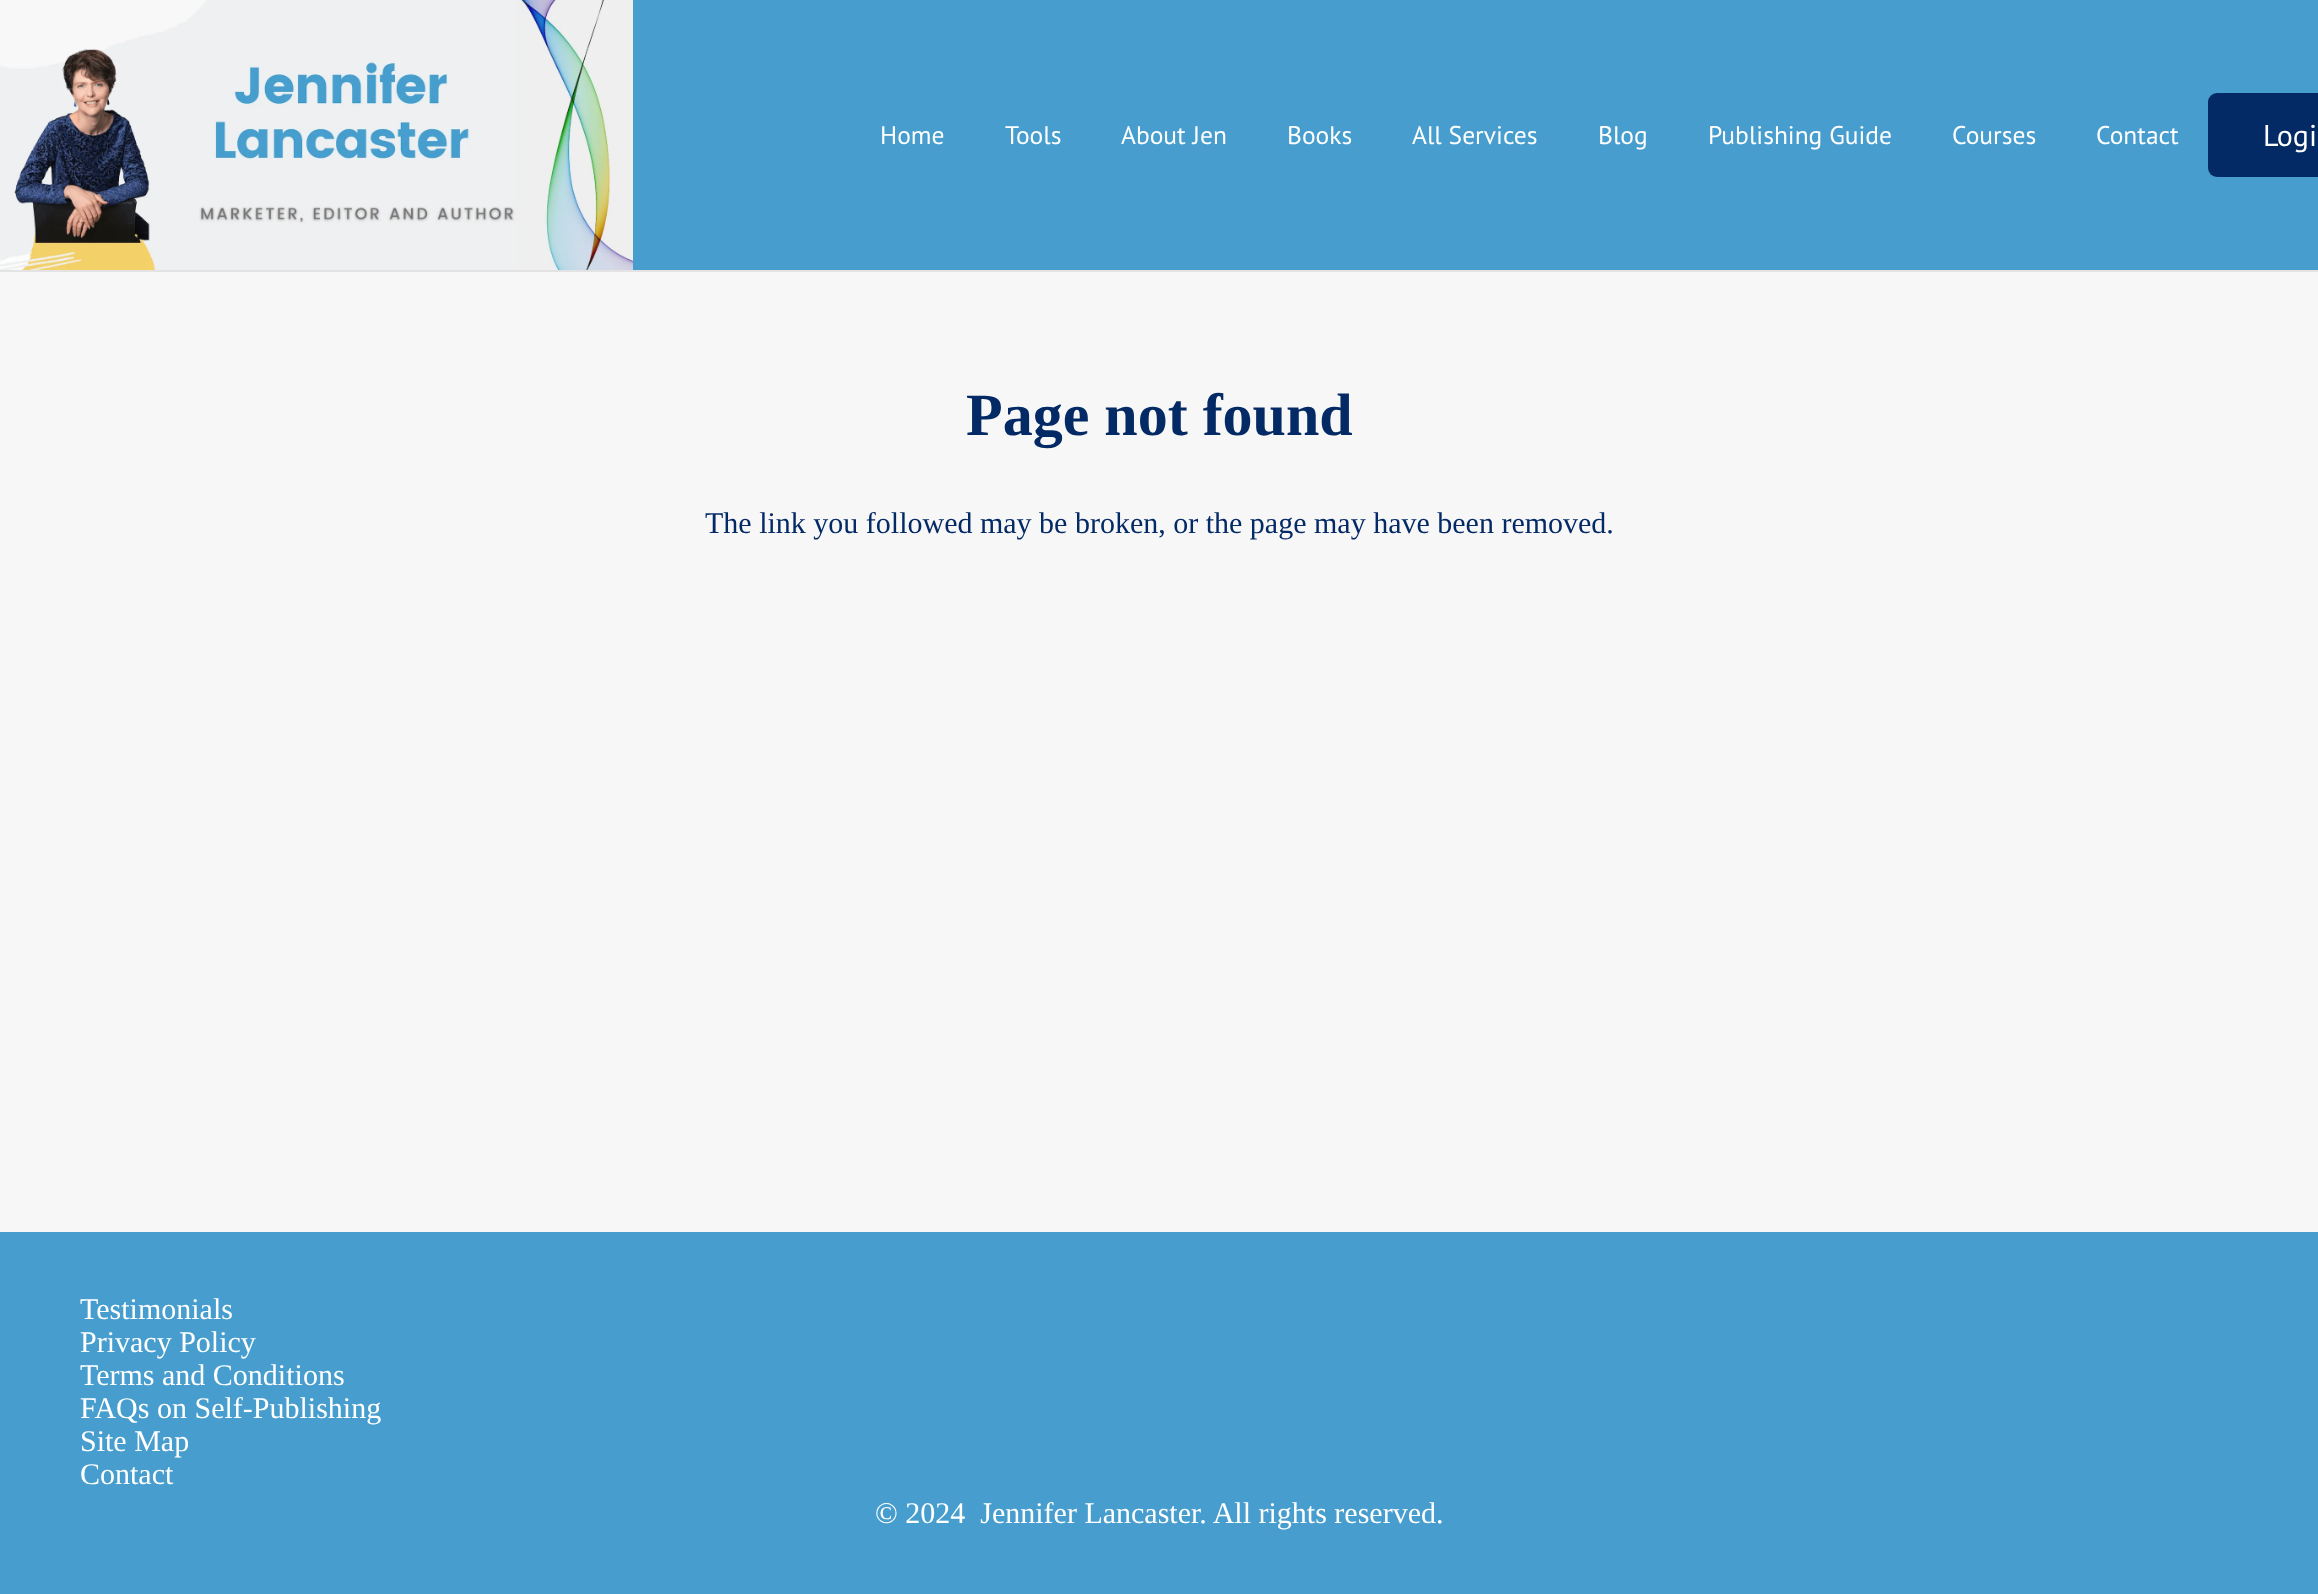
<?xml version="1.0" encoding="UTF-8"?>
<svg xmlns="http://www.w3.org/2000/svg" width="2318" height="1594">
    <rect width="100%" height="100%" fill="#F7F7F7"/>
    <rect x="0" y="270" width="2318" height="2" fill="#E3E3E3"/>
    <rect x="633" y="0" width="1685" height="270" fill="#479ECE"/>
    <image x="0" y="0" width="633" height="270" href="img_01.png"/>
    <text x="880" y="144" font-family="PT Sans" font-size="25.5" fill="#FFFFFF">Home</text>
    <text x="1005" y="144" font-family="PT Sans" font-size="25.5" fill="#FFFFFF">Tools</text>
    <text x="1121" y="144" font-family="PT Sans" font-size="25.5" fill="#FFFFFF">About Jen</text>
    <text x="1287" y="144" font-family="PT Sans" font-size="25.5" fill="#FFFFFF">Books</text>
    <text x="1412" y="144" font-family="PT Sans" font-size="25.5" fill="#FFFFFF">All Services</text>
    <text x="1598" y="144" font-family="PT Sans" font-size="25.5" fill="#FFFFFF">Blog</text>
    <text x="1708" y="144" font-family="PT Sans" font-size="25.5" fill="#FFFFFF">Publishing Guide</text>
    <text x="1952" y="144" font-family="PT Sans" font-size="25.5" fill="#FFFFFF">Courses</text>
    <text x="2096" y="144" font-family="PT Sans" font-size="25.5" fill="#FFFFFF">Contact</text>
    <rect x="2208" y="93" width="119" height="84" rx="9" fill="#042A66"/>
    <text x="2263" y="146" font-family="PT Sans" font-size="30" fill="#FFFFFF">Logi</text>
    <text x="966" y="435" font-family="Liberation Serif" font-size="60" font-weight="700" fill="#042A66">Page not found</text>
    <text x="705" y="533" font-family="Liberation Serif" font-size="30" fill="#042A66">The link you followed may be broken, or the page may have been removed.</text>
    <rect x="0" y="1232" width="2318" height="362" fill="#479ECE"/>
    <text font-family="Liberation Serif" font-size="30" fill="#FFFFFF">
        <tspan x="80" y="1319">Testimonials</tspan>
        <tspan x="80" y="1352">Privacy Policy</tspan>
        <tspan x="80" y="1385">Terms and Conditions</tspan>
        <tspan x="80" y="1418">FAQs on Self-Publishing</tspan>
        <tspan x="80" y="1451">Site Map</tspan>
        <tspan x="80" y="1484">Contact</tspan>
    </text>
    <text x="875" y="1523" font-family="Liberation Serif" font-size="30" fill="#FFFFFF" xml:space="preserve">© 2024  Jennifer Lancaster. All rights reserved.</text>
</svg>
